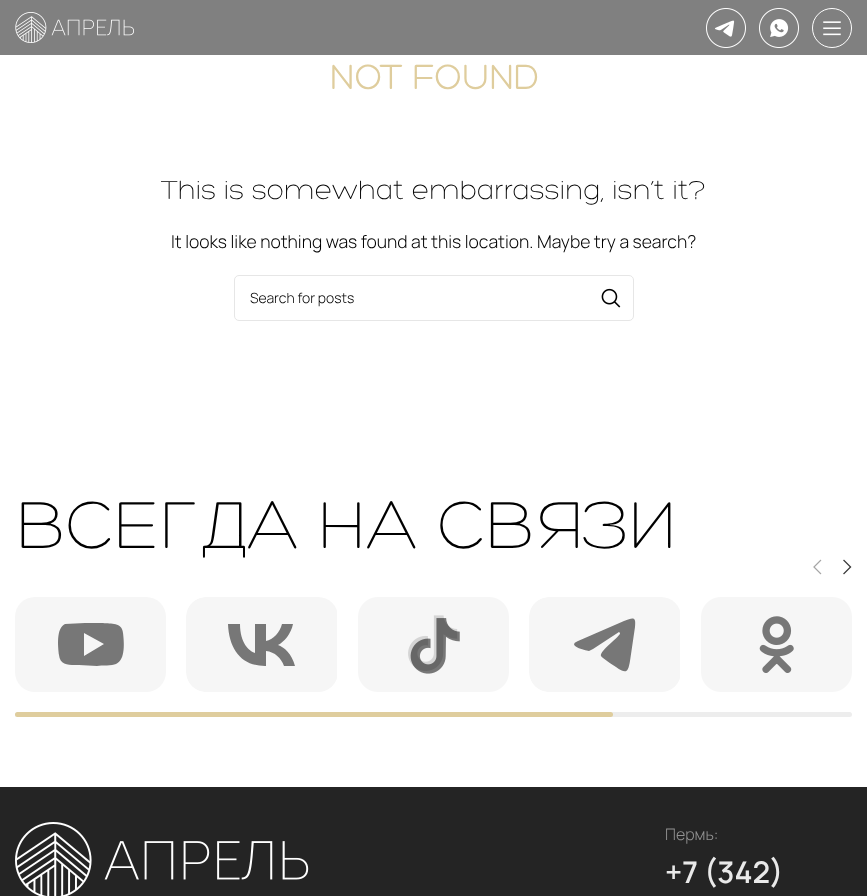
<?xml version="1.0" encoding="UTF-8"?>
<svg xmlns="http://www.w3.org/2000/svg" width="867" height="896">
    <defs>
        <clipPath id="clip1"><rect x="186" y="597" width="152" height="95" rx="20"/></clipPath>
        <clipPath id="clip2"><rect x="529" y="597" width="152" height="95" rx="20"/></clipPath>
    </defs>
    <rect width="100%" height="100%" fill="#FFFFFF"/>
    <rect x="0" y="0" width="867" height="55" fill="#808080"/>
    <image x="15" y="12" width="119" height="31" href="img_01.png"/>
    <image x="706" y="8" width="40" height="40" href="img_02.png"/>
    <image x="759" y="8" width="40" height="40" href="img_03.png"/>
    <circle cx="832" cy="28" r="19.5" fill="none" stroke="#FFFFFF"/>
    <image x="823" y="21" width="18" height="15" href="img_04.png"/>
    <text x="329" y="89" font-family="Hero" font-size="36.5" font-weight="700" fill="#DFCD9D">NOT FOUND</text>
    <text x="161" y="199" font-family="Hero" font-size="28" font-weight="300" fill="#000000">This is somewhat embarrassing, isn’t it?</text>
    <text x="171" y="248" font-family="Manrope" font-size="17.6" font-weight="300" fill="#000000">It looks like nothing was found at this location. Maybe try a search?</text>
    <rect x="234.5" y="275.5" width="399" height="45" rx="4.5" fill="none" stroke="#E6E6E6"/>
    <text x="250" y="303" font-family="Manrope" font-size="14" font-weight="300" fill="#000000">Search for posts</text>
    <image x="601" y="288" width="20" height="20" href="img_05.png"/>
    <text x="15" y="548" font-family="Hero" font-size="72" font-weight="300" fill="#000000">ВСЕГДА НА СВЯЗИ</text>
    <image x="813" y="559" width="9" height="16" href="img_06.png"/>
    <image x="843" y="559" width="9" height="16" href="img_07.png"/>
    <rect x="15" y="597" width="151" height="95" rx="20" fill="#F6F6F6"/>
    <path d="M 123 633 C 122 622 111 624 103 623 H 85 L 65 624 C 56 628 58 647 59 655 C 60 666 70 665 79 665 L 97 666 C 102 665 112 666 116 664 C 126 660 124 641 123 633 Z M 84 656 V 633 L 104 644 Z" fill="#777777"/>
    <g clip-path="url(#clip1)">
        <path d="M 206 597 H 337 V 692 H 206 C 195 692 186 683 186 672 V 617 C 186 606 195 597 206 597 Z" fill="#F6F6F6"/>
    </g>
    <path d="M 265 666 C 242 666 229 650 228 624 H 240 C 240 643 249 651 255 653 V 624 H 266 V 641 C 273 640 280 632 282 624 H 293 C 291 634 284 642 278 645 C 284 647 292 654 295 666 H 284 C 281 658 275 652 266 651 V 666 Z" fill="#777777"/>
    <image x="358" y="597" width="151" height="95" href="img_08.png"/>
    <g clip-path="url(#clip2)">
        <path d="M 549 597 H 680 V 692 H 549 C 538 692 529 683 529 672 V 617 C 529 606 538 597 549 597 Z" fill="#F6F6F6"/>
    </g>
    <path d="M 578 641 L 624 621 C 634 617 636 617 635 627 L 630 661 C 628 673 626 674 616 667 C 613 665 602 658 601 656 C 599 651 621 636 620 633 L 619 632 L 593 649 L 589 651 C 585 650 566 646 578 641 Z" fill="#777777" fill-rule="evenodd"/>
    <image x="701" y="597" width="151" height="95" href="img_09.png"/>
    <rect x="15" y="712" width="837" height="5" rx="2.5" fill="#EDEDED"/>
    <rect x="15" y="712" width="598" height="5" rx="2.5" fill="#DFCD9D"/>
    <rect x="0" y="787" width="867" height="109" fill="#242424"/>
    <image x="15" y="822" width="294" height="74" href="img_10.png"/>
    <text x="665" y="840" font-family="Manrope" font-size="16" font-weight="300" fill="#929292">Пермь:</text>
    <text x="665" y="883" font-family="Manrope" font-size="30" font-weight="600" fill="#E9E9E9">+7 (342)</text>
</svg>
